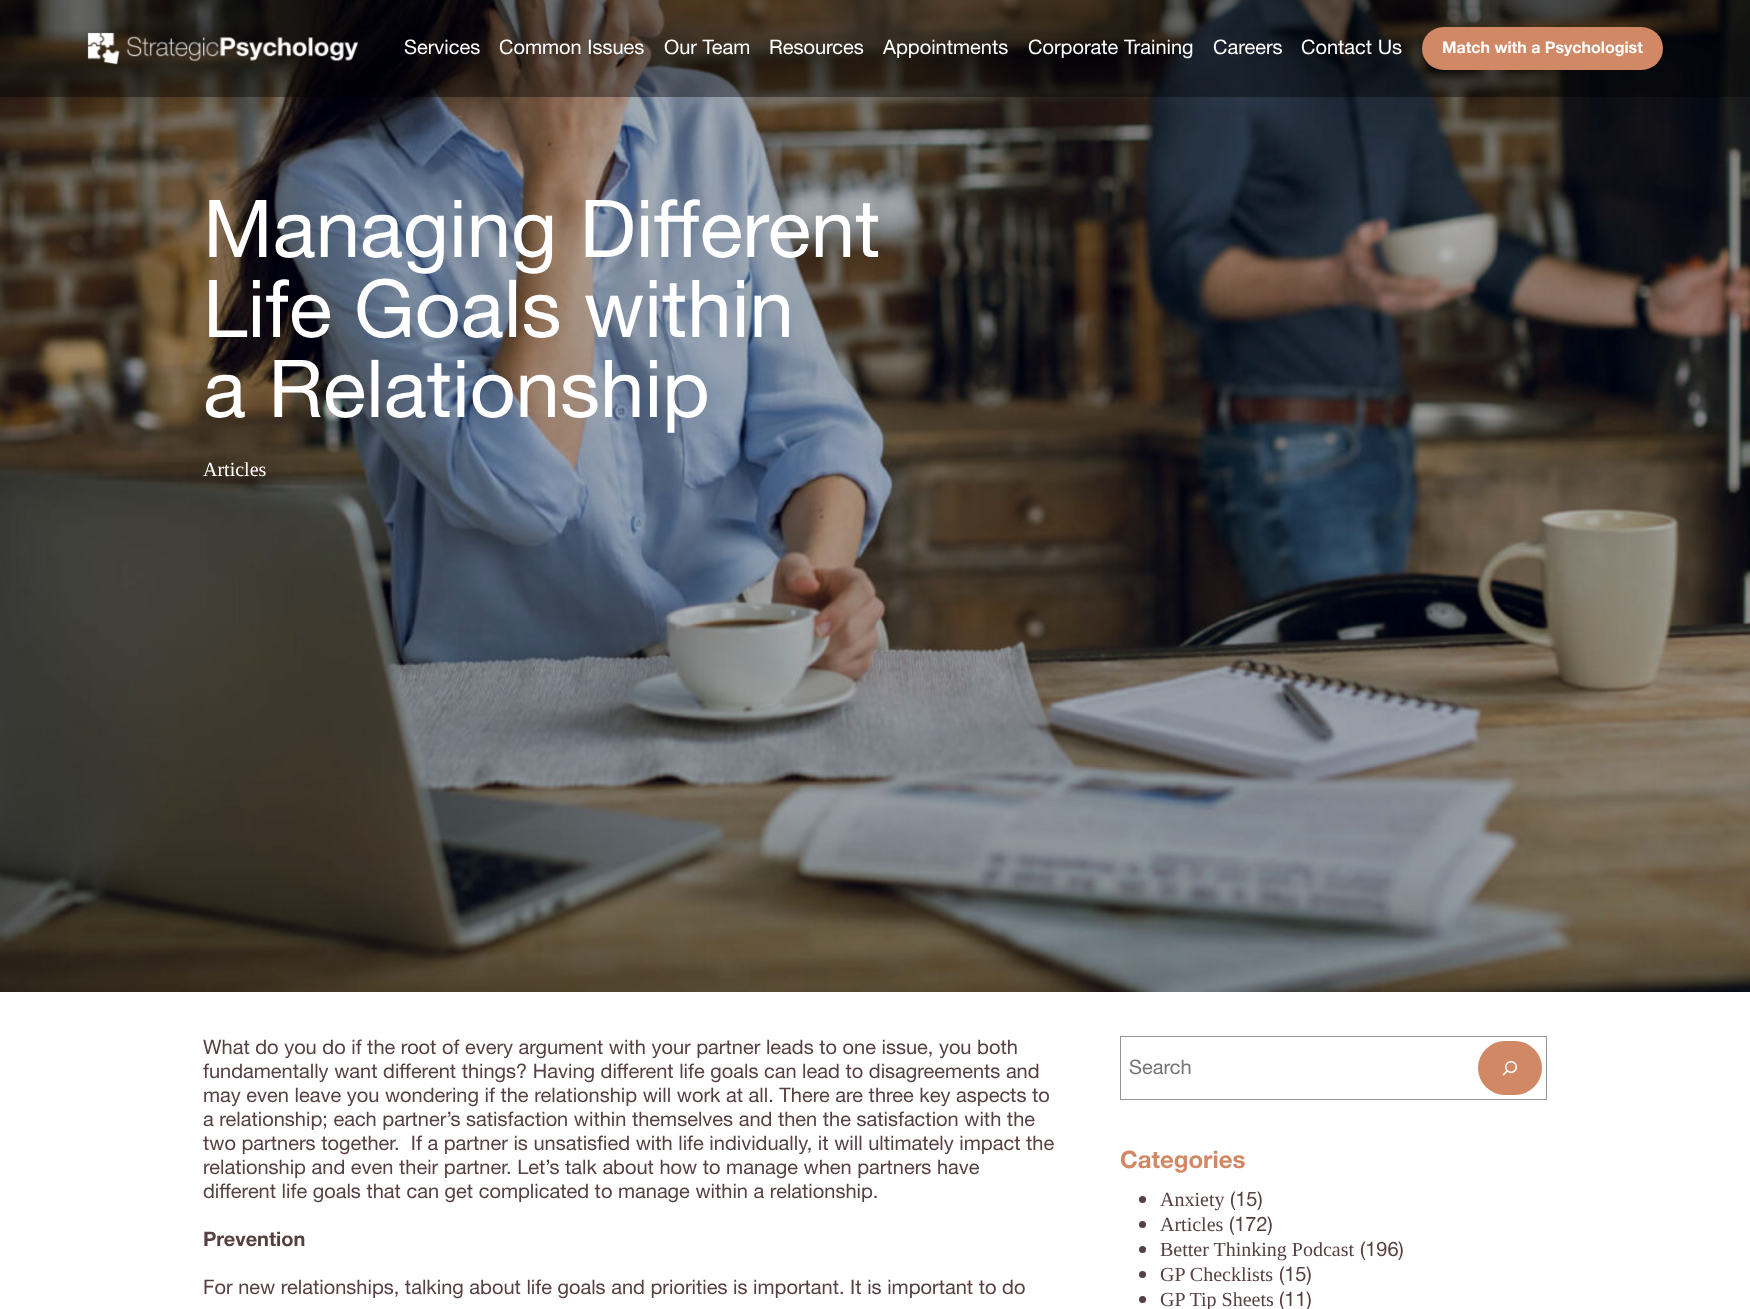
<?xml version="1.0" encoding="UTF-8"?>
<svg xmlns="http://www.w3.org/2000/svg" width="1750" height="1309">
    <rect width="100%" height="100%" fill="#FFFFFF"/>
    <image x="0" y="0" width="1750" height="992" href="img_02.png"/>
    <rect x="0" y="0" width="1750" height="97" fill="#000000" fill-opacity="0.4"/>
    <image x="87" y="32" width="271" height="33" href="img_01.png"/>
    <text x="404" y="54" font-family="Helvetica Neue" font-size="20" fill="#FFFFFF">Services</text>
    <text x="499" y="54" font-family="Helvetica Neue" font-size="20" fill="#FFFFFF">Common Issues</text>
    <text x="664" y="54" font-family="Helvetica Neue" font-size="20" fill="#FFFFFF">Our Team</text>
    <text x="769" y="54" font-family="Helvetica Neue" font-size="20" fill="#FFFFFF">Resources</text>
    <text x="883" y="54" font-family="Helvetica Neue" font-size="20" fill="#FFFFFF">Appointments</text>
    <text x="1028" y="54" font-family="Helvetica Neue" font-size="20" fill="#FFFFFF">Corporate Training</text>
    <text x="1213" y="54" font-family="Helvetica Neue" font-size="20" fill="#FFFFFF">Careers</text>
    <text x="1301" y="54" font-family="Helvetica Neue" font-size="20" fill="#FFFFFF">Contact Us</text>
    <rect x="1422" y="27" width="241" height="43" rx="21.5" fill="#D18865"/>
    <text x="1442" y="53" font-family="Helvetica Neue" font-size="16" font-weight="700" fill="#FFFFFF">Match with a Psychologist</text>
    <text font-family="Helvetica Neue" font-size="80" fill="#FFFFFF">
        <tspan x="203" y="257">Managing Different</tspan>
        <tspan x="203" y="337">Life Goals within</tspan>
        <tspan x="203" y="417">a Relationship</tspan>
    </text>
    <text x="203" y="476" font-family="Liberation Serif" font-size="20" fill="#FFFFFF">Articles</text>
    <text font-family="Helvetica Neue" font-size="20" fill="#564042" xml:space="preserve"><tspan x="203" y="1054">What do you do if the root of every argument with your partner leads to one issue, you both</tspan><tspan x="203" y="1078">fundamentally want different things? Having different life goals can lead to disagreements and</tspan><tspan x="203" y="1102">may even leave you wondering if the relationship will work at all. There are three key aspects to</tspan><tspan x="203" y="1126">a relationship; each partner’s satisfaction within themselves and then the satisfaction with the</tspan><tspan x="203" y="1150">two partners together.  If a partner is unsatisfied with life individually, it will ultimately impact the</tspan><tspan x="203" y="1174">relationship and even their partner. Let’s talk about how to manage when partners have</tspan><tspan x="203" y="1198">different life goals that can get complicated to manage within a relationship.</tspan></text>
    <text x="203" y="1246" font-family="Helvetica Neue" font-size="20" font-weight="700" fill="#564042">Prevention</text>
    <text x="203" y="1294" font-family="Helvetica Neue" font-size="20" fill="#564042">For new relationships, talking about life goals and priorities is important. It is important to do</text>
    <rect x="1120.5" y="1036.5" width="426" height="63" fill="none" stroke="#949494"/>
    <text x="1129" y="1074" font-family="Helvetica Neue" font-size="20" fill="#757575">Search</text>
    <rect x="1478" y="1041" width="64" height="54" rx="27" fill="#D18865"/>
    <image x="1502" y="1061" width="16" height="15" href="img_03.png"/>
    <text x="1120" y="1168" font-family="Helvetica Neue" font-size="24" font-weight="700" fill="#D18865">Categories</text>
    <circle cx="1142.5" cy="1199.5" r="3.5" fill="#564042"/>
    <text x="1160" y="1206" font-family="Liberation Serif" font-size="20" fill="#564042">Anxiety</text>
    <text x="1230" y="1206" font-family="Helvetica Neue" font-size="20" fill="#564042">(15)</text>
    <circle cx="1142.5" cy="1224.5" r="3.5" fill="#564042"/>
    <text x="1160" y="1231" font-family="Liberation Serif" font-size="20" fill="#564042">Articles</text>
    <text x="1229" y="1231" font-family="Helvetica Neue" font-size="20" fill="#564042">(172)</text>
    <circle cx="1142.5" cy="1249.5" r="3.5" fill="#564042"/>
    <text x="1160" y="1256" font-family="Liberation Serif" font-size="20" fill="#564042">Better Thinking Podcast</text>
    <text x="1360" y="1256" font-family="Helvetica Neue" font-size="20" fill="#564042">(196)</text>
    <circle cx="1142.5" cy="1274.5" r="3.5" fill="#564042"/>
    <text x="1160" y="1281" font-family="Liberation Serif" font-size="20" fill="#564042">GP Checklists</text>
    <text x="1279" y="1281" font-family="Helvetica Neue" font-size="20" fill="#564042">(15)</text>
    <circle cx="1142.5" cy="1299.5" r="3.5" fill="#564042"/>
    <text x="1160" y="1306" font-family="Liberation Serif" font-size="20" fill="#564042">GP Tip Sheets</text>
    <text x="1279" y="1306" font-family="Helvetica Neue" font-size="20" fill="#564042">(11)</text>
</svg>
